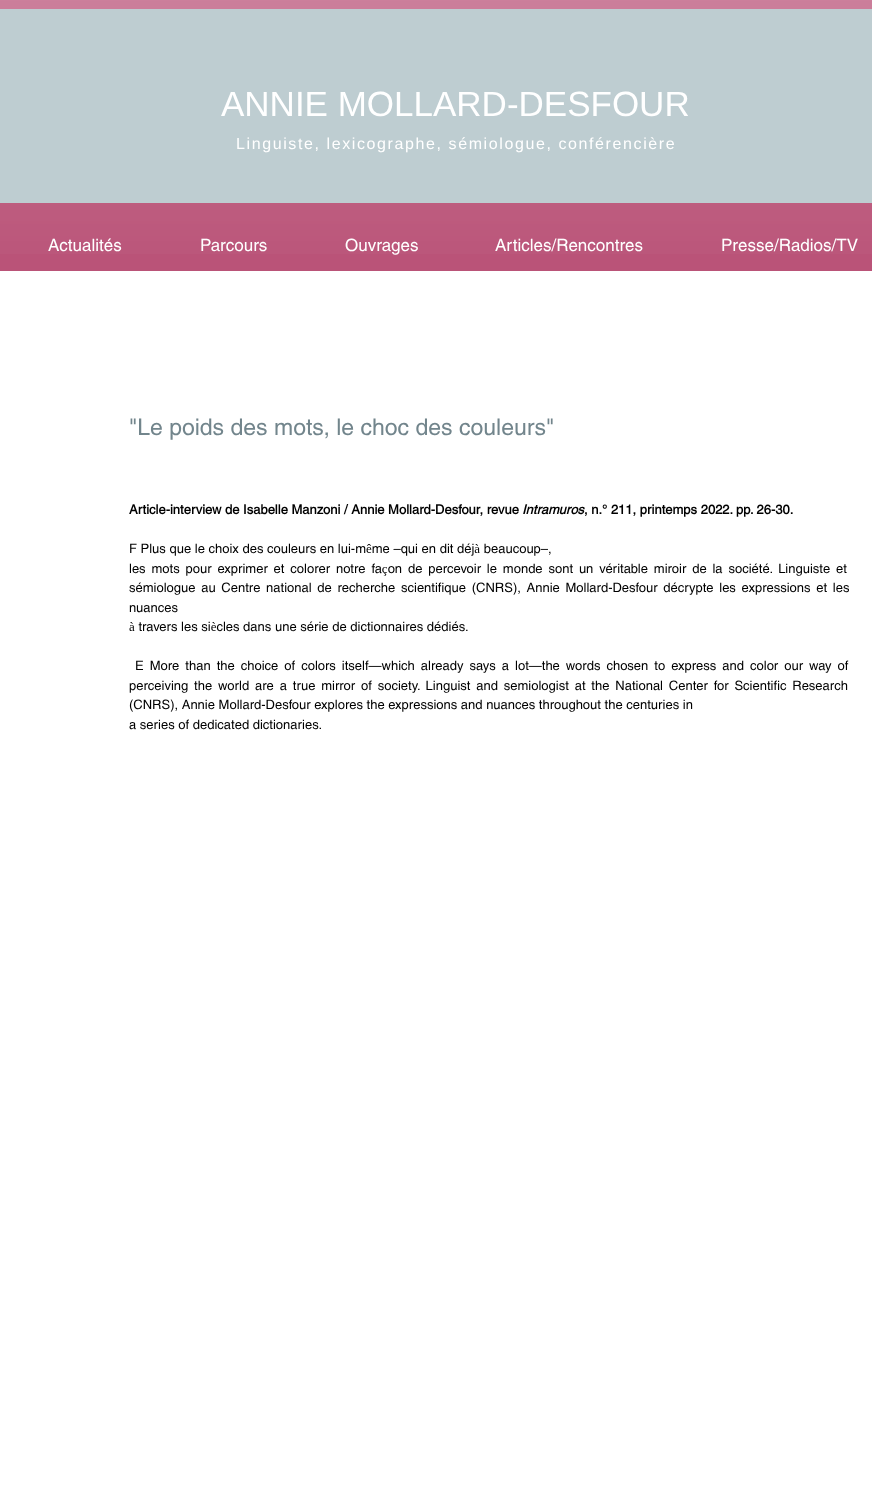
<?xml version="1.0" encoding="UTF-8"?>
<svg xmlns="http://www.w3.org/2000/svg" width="872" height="1504">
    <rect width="100%" height="100%" fill="#FFFFFF"/>
    <rect x="0" y="0" width="872" height="271" fill="#BA5378"/>
    <image x="0" y="0" width="872" height="254" href="img_01.png"/>
    <rect x="0" y="9" width="872" height="194" fill="#BECDD1"/>
    <text x="221" y="116" font-family="Liberation Sans" font-size="35" fill="#FFFFFF">ANNIE MOLLARD-DESFOUR</text>
    <text x="236" y="149" font-family="Liberation Sans" font-size="16" letter-spacing="1.6" fill="#FFFFFF">Linguiste, lexicographe, sémiologue, conférencière</text>
    <text x="48" y="251" font-family="helvetica" font-size="17" fill="#FFFFFF">Actualités</text>
    <text x="200" y="251" font-family="helvetica" font-size="17" fill="#FFFFFF">Parcours</text>
    <text x="345" y="251" font-family="helvetica" font-size="17" fill="#FFFFFF">Ouvrages</text>
    <text x="495" y="251" font-family="helvetica" font-size="17" fill="#FFFFFF">Articles/Rencontres</text>
    <text x="721" y="251" font-family="helvetica" font-size="17" fill="#FFFFFF">Presse/Radios/TV</text>
    <text x="129" y="435" font-family="helvetica" font-size="23" fill="#72858C">"Le poids des mots, le choc des couleurs"</text>
    <text x="129" y="514" font-family="helvetica" font-size="13" font-weight="700" fill="#000000">Article-interview de Isabelle Manzoni / Annie Mollard-Desfour, revue</text>
    <text x="522" y="514" font-family="helvetica" font-size="13" font-weight="700" font-style="italic" fill="#000000">Intramuros</text>
    <text x="584" y="514" font-family="helvetica" font-size="13" font-weight="700" fill="#000000">, n.° 211, printemps 2022. pp. 26-30.</text>
    <text font-family="helvetica" font-size="13" fill="#000000">
        <tspan x="129" y="553">F Plus que le choix des couleurs en lui-même –qui en dit déjà beaucoup–,</tspan>
        <tspan x="129" y="573" word-spacing="2.25">les mots pour exprimer et colorer notre façon de percevoir le monde sont un véritable miroir de la société. Linguiste et</tspan>
        <tspan x="129" y="592" word-spacing="2.1">sémiologue au Centre national de recherche scientifique (CNRS), Annie Mollard-Desfour décrypte les expressions et les</tspan>
        <tspan x="129" y="612">nuances</tspan>
        <tspan x="129" y="631">à travers les siècles dans une série de dictionnaires dédiés.</tspan>
    </text>
    <text x="135" y="670" word-spacing="2.4" font-family="helvetica" font-size="13" fill="#000000">E More than the choice of colors itself—which already says a lot—the words chosen to express and color our way of</text>
    <text font-family="helvetica" font-size="13" fill="#000000">
        <tspan x="129" y="690" word-spacing="2.25">perceiving the world are a true mirror of society. Linguist and semiologist at the National Center for Scientific Research</tspan>
        <tspan x="129" y="709">(CNRS), Annie Mollard-Desfour explores the expressions and nuances throughout the centuries in</tspan>
        <tspan x="129" y="729">a series of dedicated dictionaries.</tspan>
    </text>
</svg>
